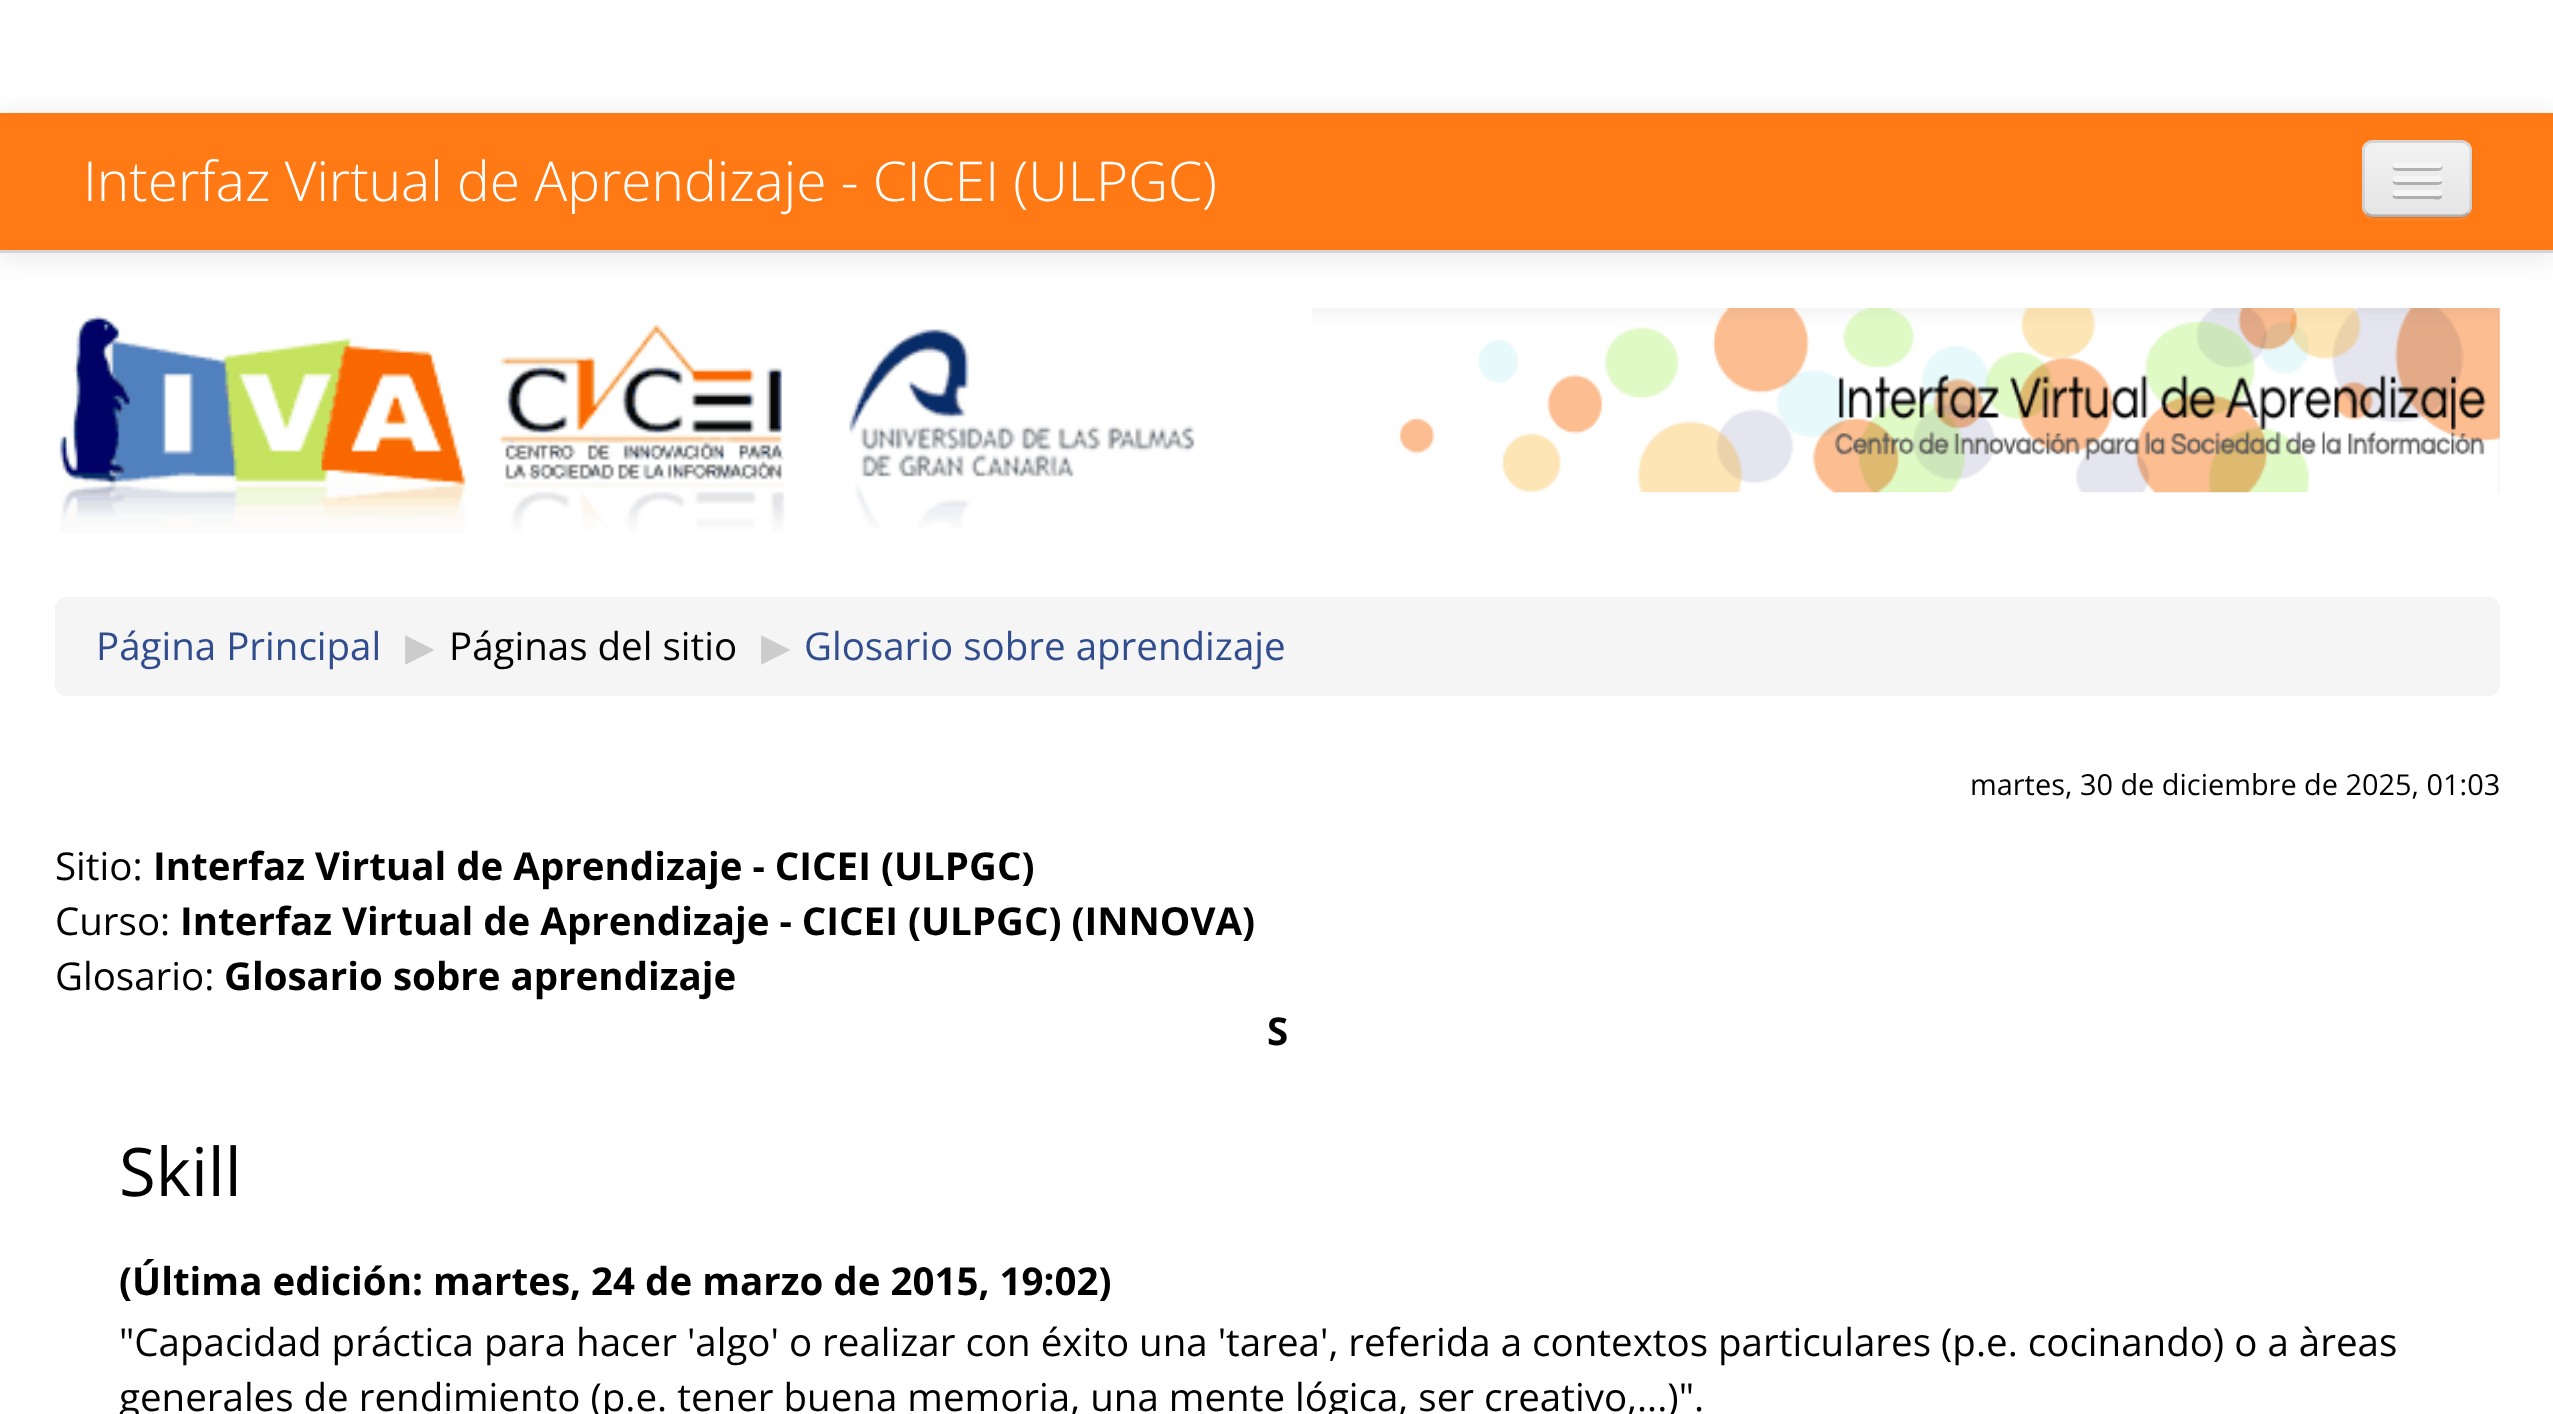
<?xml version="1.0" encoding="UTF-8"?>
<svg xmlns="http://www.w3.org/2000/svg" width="2553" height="1414">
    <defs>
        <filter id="blur1" x="-50%" y="-200%" width="200%" height="500%"><feGaussianBlur stdDeviation="14"/></filter>
        <clipPath id="clip1"><rect x="2362" y="140" width="110" height="77" rx="11"/></clipPath>
        <linearGradient id="g1" gradientUnits="userSpaceOnUse" x1="2417" y1="143" x2="2417" y2="215"><stop offset="0" stop-color="#F2F2F2"/><stop offset="1" stop-color="#E5E5E5"/></linearGradient>
    </defs>
    <rect width="100%" height="100%" fill="#FFFFFF"/>
    <rect x="0" y="116" width="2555" height="140" fill="#000000" fill-opacity="0.1" filter="url(#blur1)"/>
    <rect x="0" y="113" width="2553" height="137" fill="#FF7914"/>
    <rect x="0" y="250" width="2553" height="3" fill="#D4D4D4"/>
    <text x="83" y="201" font-family="Open Sans" font-size="55" font-weight="300" fill="#FFFFFF">Interfaz Virtual de Aprendizaje - CICEI (ULPGC)</text>
    <path d="M 2362 152 V 209 C 2362 215 2367 220 2373 220 H 2461 C 2467 220 2472 215 2472 209 C 2471 214 2467 217 2461 217 H 2373 C 2367 217 2362 212 2362 206 Z" fill="#FF8326"/>
    <rect x="2362" y="140" width="110" height="77" rx="11" fill="#EDEDED"/>
    <g clip-path="url(#clip1)">
        <rect x="2362" y="143" width="110" height="72" fill="url(#g1)"/>
    </g>
    <path d="M 2468 213 C 2466.5 215 2464 216 2461 216 H 2373 C 2370.5 216 2368 215 2366.5 213" fill="none" stroke="#000000" stroke-opacity="0.25" stroke-width="2.8"/>
    <path d="M 2366.5 213 C 2364.5 211.5 2363.5 209 2363.5 206 V 151 C 2363.5 148.5 2364.5 146 2366.5 144.5 C 2368 142.5 2370.5 141.5 2373 141.5 H 2461 C 2464 141.5 2466.5 142.5 2468 144.5 C 2470 146 2471 148.5 2471 151 V 206 C 2471 209 2470 211.5 2468 213" fill="none" stroke="#000000" stroke-opacity="0.1" stroke-width="2.8"/>
    <path d="M 2393 167 C 2391 172 2402 171 2403 171 H 2432 C 2433 171 2445 172 2442 166 L 2440 168 H 2395 Z" fill="#B2B2B2"/>
    <rect x="2393" y="162" width="49" height="6" rx="3" fill="#F5F5F5"/>
    <path d="M 2393 181 C 2391 186 2402 185 2403 185 H 2432 C 2432 185 2446 186 2441 180 L 2440 181 H 2395 Z" fill="#B0B0B0"/>
    <rect x="2393" y="176" width="49" height="6" rx="3" fill="#F5F5F5"/>
    <path d="M 2393 195 C 2390 200 2402 199 2403 199 H 2432 C 2434 199 2441 201 2442 197 L 2441 194 L 2440 195 C 2435 196 2395 196 2393 195 Z" fill="#AEAEAE"/>
    <rect x="2393" y="190" width="49" height="6" rx="3" fill="#F5F5F5"/>
    <image x="59" y="315" width="1136" height="218" href="img_01.png"/>
    <image x="1312" y="308" width="1188" height="185" href="img_02.png"/>
    <rect x="55" y="597" width="2445" height="99" rx="11" fill="#F5F5F5"/>
    <text x="96" y="660" font-family="Open Sans" font-size="38.5" fill="#324D8E">Página Principal</text>
    <text x="405" y="660" font-family="DejaVu Sans" font-size="38.5" fill="#CCCCCC">▶</text>
    <text x="449" y="660" font-family="Open Sans" font-size="38.5" fill="#000000">Páginas del sitio</text>
    <text x="761" y="660" font-family="DejaVu Sans" font-size="38.5" fill="#CCCCCC">▶</text>
    <text x="804" y="660" font-family="Open Sans" font-size="38.5" fill="#324D8E">Glosario sobre aprendizaje</text>
    <text x="1970" y="795" font-family="Open Sans" font-size="28.9" fill="#000000">martes, 30 de diciembre de 2025, 01:03</text>
    <text x="55" y="880" font-family="Open Sans" font-size="38.5" fill="#000000">Sitio:</text>
    <text x="153" y="880" font-family="Open Sans" font-size="38.5" font-weight="700" fill="#000000">Interfaz Virtual de Aprendizaje - CICEI (ULPGC)</text>
    <text x="55" y="935" font-family="Open Sans" font-size="38.5" fill="#000000">Curso:</text>
    <text x="180" y="935" font-family="Open Sans" font-size="38.5" font-weight="700" fill="#000000">Interfaz Virtual de Aprendizaje - CICEI (ULPGC) (INNOVA)</text>
    <text x="55" y="990" font-family="Open Sans" font-size="38.5" fill="#000000">Glosario:</text>
    <text x="224" y="990" font-family="Open Sans" font-size="38.5" font-weight="700" fill="#000000">Glosario sobre aprendizaje</text>
    <text x="1267" y="1045" font-family="Open Sans" font-size="38.5" font-weight="700" fill="#000000">S</text>
    <text x="119" y="1196" font-family="Open Sans" font-size="67" fill="#000000">Skill</text>
    <text x="119" y="1295" font-family="Open Sans" font-size="38.5" font-weight="700" fill="#000000">(Última edición: martes, 24 de marzo de 2015, 19:02)</text>
    <text font-family="Open Sans" font-size="38.5" fill="#000000">
        <tspan x="119" y="1356">"Capacidad práctica para hacer 'algo' o realizar con éxito una 'tarea', referida a contextos particulares (p.e. cocinando) o a àreas</tspan>
        <tspan x="119" y="1411">generales de rendimiento (p.e. tener buena memoria, una mente lógica, ser creativo,...)".</tspan>
    </text>
</svg>
